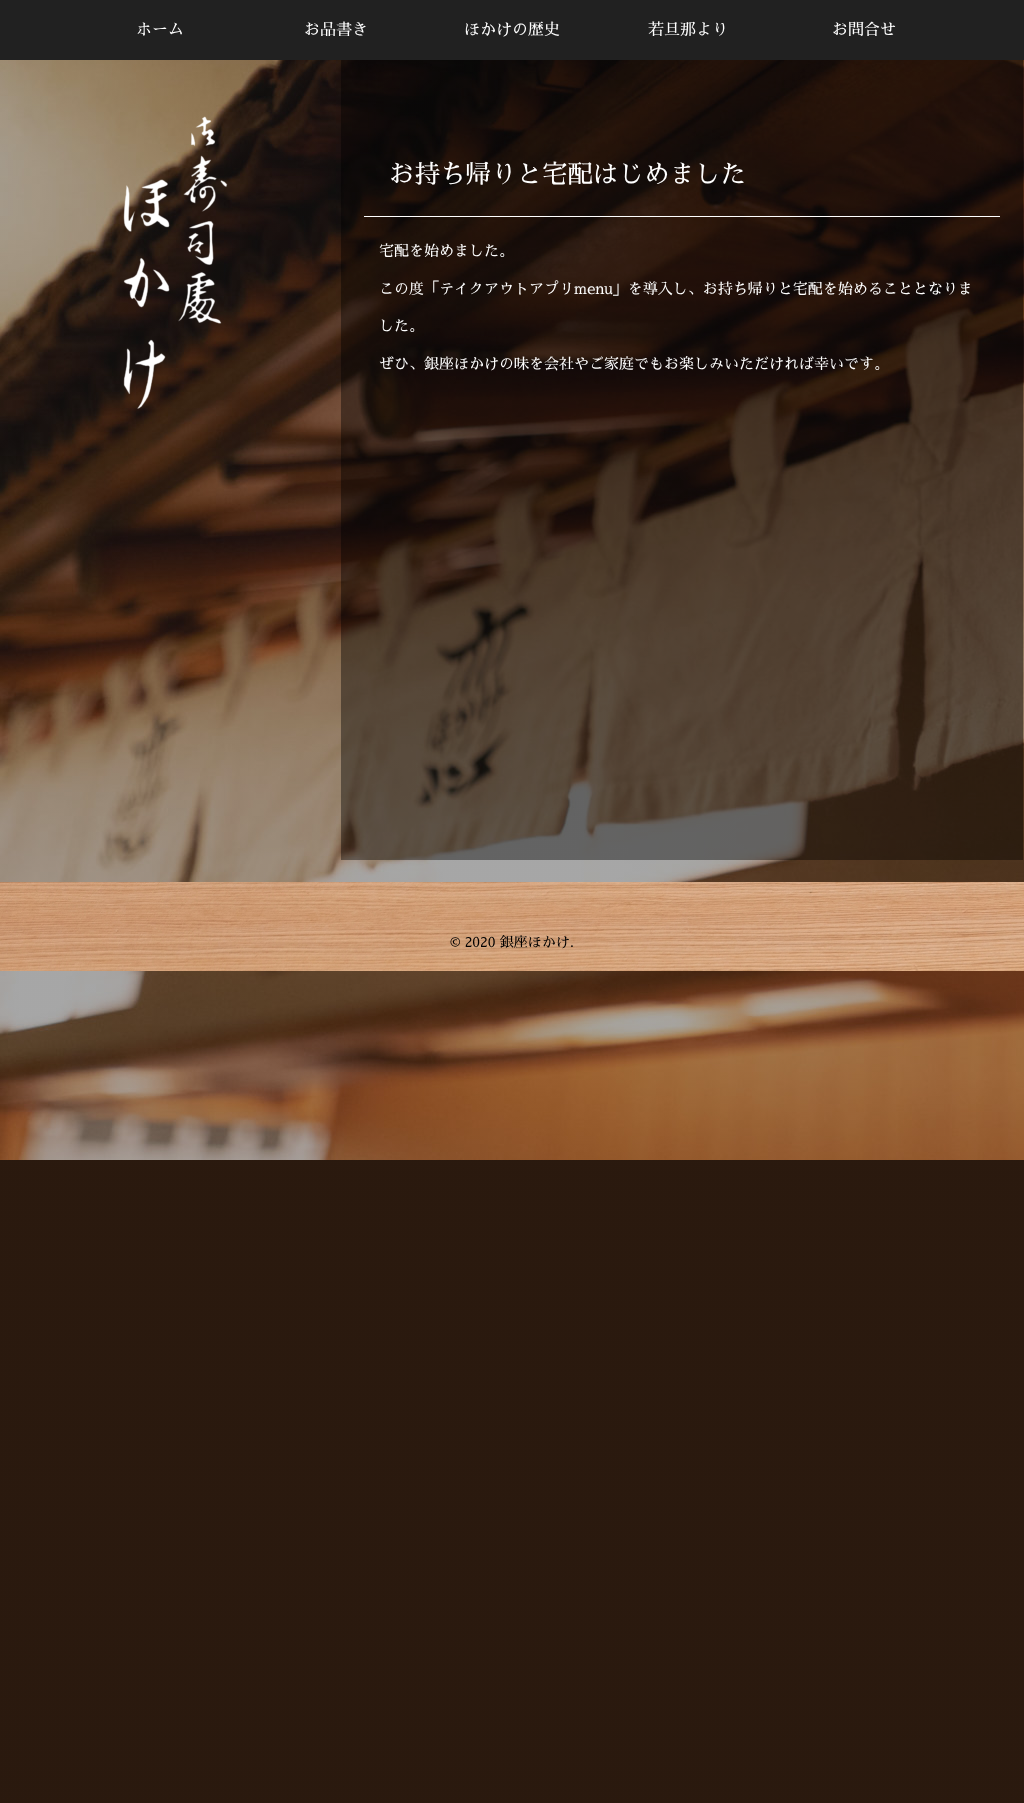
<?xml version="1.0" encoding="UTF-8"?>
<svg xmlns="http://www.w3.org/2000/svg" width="1024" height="1803">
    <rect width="100%" height="100%" fill="#311402"/>
    <image x="0" y="60" width="1024" height="1743" href="img_01.png"/>
    <rect x="0" y="0" width="1024" height="60" fill="#212121"/>
    <text x="136" y="35" font-family="Sawarabi Mincho" font-size="16" fill="#FFFFFF">ホーム</text>
    <text x="304" y="35" font-family="Sawarabi Mincho" font-size="16" fill="#FFFFFF">お品書き</text>
    <text x="464" y="35" font-family="Sawarabi Mincho" font-size="16" fill="#FFFFFF">ほかけの歴史</text>
    <text x="648" y="35" font-family="Sawarabi Mincho" font-size="16" fill="#FFFFFF">若旦那より</text>
    <text x="832" y="35" font-family="Sawarabi Mincho" font-size="16" fill="#FFFFFF">お問合せ</text>
    <image x="123" y="116" width="105" height="293" href="img_02.png"/>
    <rect x="341" y="60" width="682" height="800" fill="#000000" fill-opacity="0.4"/>
    <rect x="364" y="216" width="636" height="1" fill="#FFFFFF"/>
    <text x="389" y="183" font-family="Sawarabi Mincho" font-size="25.5" fill="#FFFFFF">お持ち帰りと宅配はじめました</text>
    <text x="379" y="256" font-family="Sawarabi Mincho" font-size="15" fill="#FFFFFF">宅配を始めました。</text>
    <text x="379" y="294" font-family="Sawarabi Mincho" font-size="15" fill="#FFFFFF">この度「テイクアウトアプリmenu」を導入し、お持ち帰りと宅配を始めることとなりま</text>
    <text x="379" y="331" font-family="Sawarabi Mincho" font-size="15" fill="#FFFFFF">した。</text>
    <text x="379" y="369" font-family="Sawarabi Mincho" font-size="15" fill="#FFFFFF">ぜひ、銀座ほかけの味を会社やご家庭でもお楽しみいただければ幸いです。</text>
    <image x="0" y="882" width="1024" height="89" href="img_03.png"/>
    <text x="450" y="947" font-family="Sawarabi Mincho" font-size="14" fill="#000000">© 2020 銀座ほかけ.</text>
</svg>
